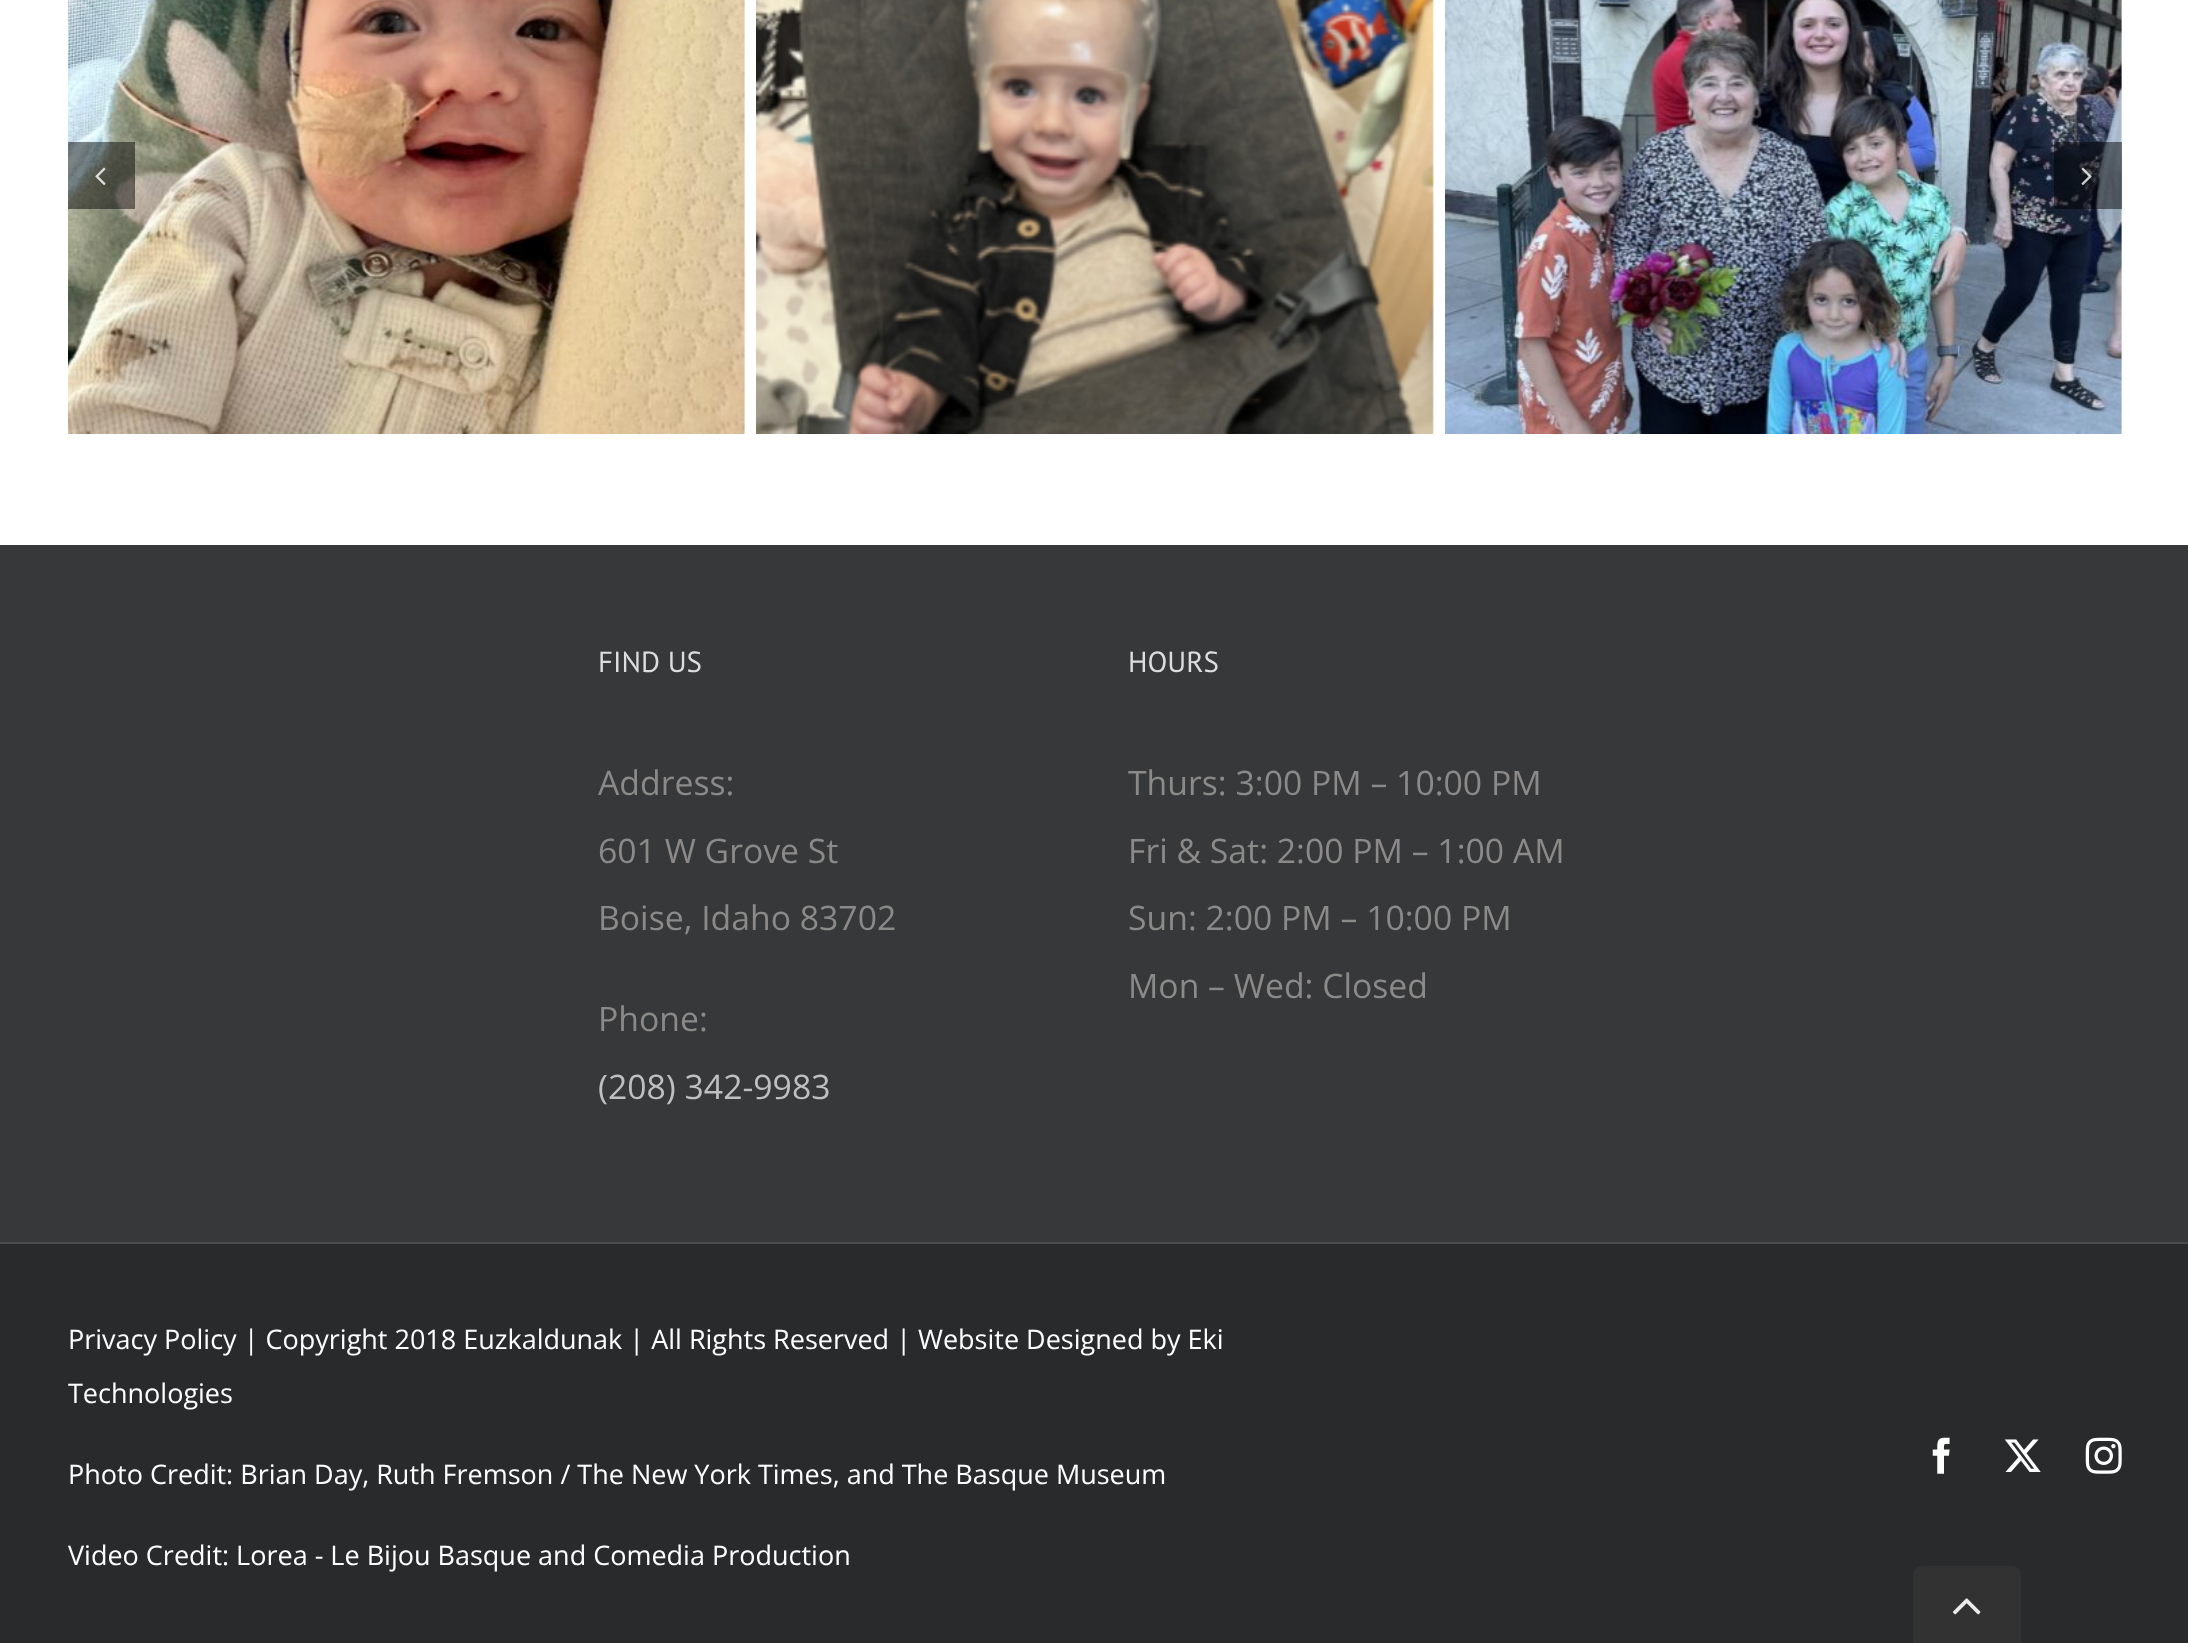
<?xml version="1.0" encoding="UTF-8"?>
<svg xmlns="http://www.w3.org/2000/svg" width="2188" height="1643">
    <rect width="100%" height="100%" fill="#FFFFFF"/>
    <image x="68" y="0" width="677" height="434" href="img_01.png"/>
    <image x="756" y="0" width="678" height="434" href="img_02.png"/>
    <image x="1445" y="0" width="677" height="434" href="img_03.png"/>
    <rect x="68" y="142" width="67" height="67" fill="#000000" fill-opacity="0.48"/>
    <image x="95" y="167" width="11" height="18" href="img_04.png"/>
    <rect x="2054" y="142" width="68" height="67" fill="#000000" fill-opacity="0.48"/>
    <image x="2081" y="167" width="11" height="18" href="img_05.png"/>
    <rect x="0" y="545" width="2188" height="697" fill="#363839"/>
    <text x="598" y="672" font-family="PT Sans" font-size="29" fill="#DDDDDD">FIND US</text>
    <text x="598" y="795" font-family="Open Sans" font-size="33.75" fill="#8C8989">Address:</text>
    <text font-family="Open Sans" font-size="33.75" fill="#8C8989">
        <tspan x="598" y="863">601 W Grove St</tspan>
        <tspan x="598" y="930">Boise, Idaho 83702</tspan>
    </text>
    <text x="598" y="1031" font-family="Open Sans" font-size="33.75" fill="#8C8989">Phone:</text>
    <text x="598" y="1099" font-family="Open Sans" font-size="33.75" fill="#BFBFBF">(208) 342-9983</text>
    <text x="1128" y="672" font-family="PT Sans" font-size="29" fill="#DDDDDD">HOURS</text>
    <text x="1128" y="795" font-family="Open Sans" font-size="33.75" fill="#8C8989">Thurs: 3:00 PM – 10:00 PM</text>
    <text font-family="Open Sans" font-size="33.75" fill="#8C8989">
        <tspan x="1128" y="863">Fri &amp; Sat: 2:00 PM – 1:00 AM</tspan>
        <tspan x="1128" y="930">Sun: 2:00 PM – 10:00 PM</tspan>
    </text>
    <text x="1128" y="998" font-family="Open Sans" font-size="33.75" fill="#8C8989">Mon – Wed: Closed</text>
    <rect x="0" y="1244" width="2188" height="399" fill="#282A2B"/>
    <rect x="0" y="1242" width="2188" height="2" fill="#4B4C4D"/>
    <text x="68" y="1349" font-family="Open Sans" font-size="27" fill="#FFFFFF">Privacy Policy | Copyright 2018 Euzkaldunak | All Rights Reserved | Website Designed by Eki</text>
    <text x="68" y="1403" font-family="Open Sans" font-size="27" fill="#FFFFFF">Technologies</text>
    <text x="68" y="1484" font-family="Open Sans" font-size="27" fill="#FFFFFF">Photo Credit: Brian Day, Ruth Fremson / The New York Times, and The Basque Museum</text>
    <text x="68" y="1565" font-family="Open Sans" font-size="27" fill="#FFFFFF">Video Credit: Lorea - Le Bijou Basque and Comedia Production</text>
    <image x="1932" y="1437" width="18" height="37" href="img_06.png"/>
    <image x="2004" y="1439" width="37" height="33" href="img_07.png"/>
    <image x="2085" y="1437" width="37" height="37" href="img_08.png"/>
    <path d="M 1922 1566 H 2012 C 2017 1566 2021 1570 2021 1575 V 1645 H 1913 V 1575 C 1913 1570 1917 1566 1922 1566 Z" fill="#323232"/>
    <image x="1952" y="1598" width="29" height="17" href="img_09.png"/>
</svg>
